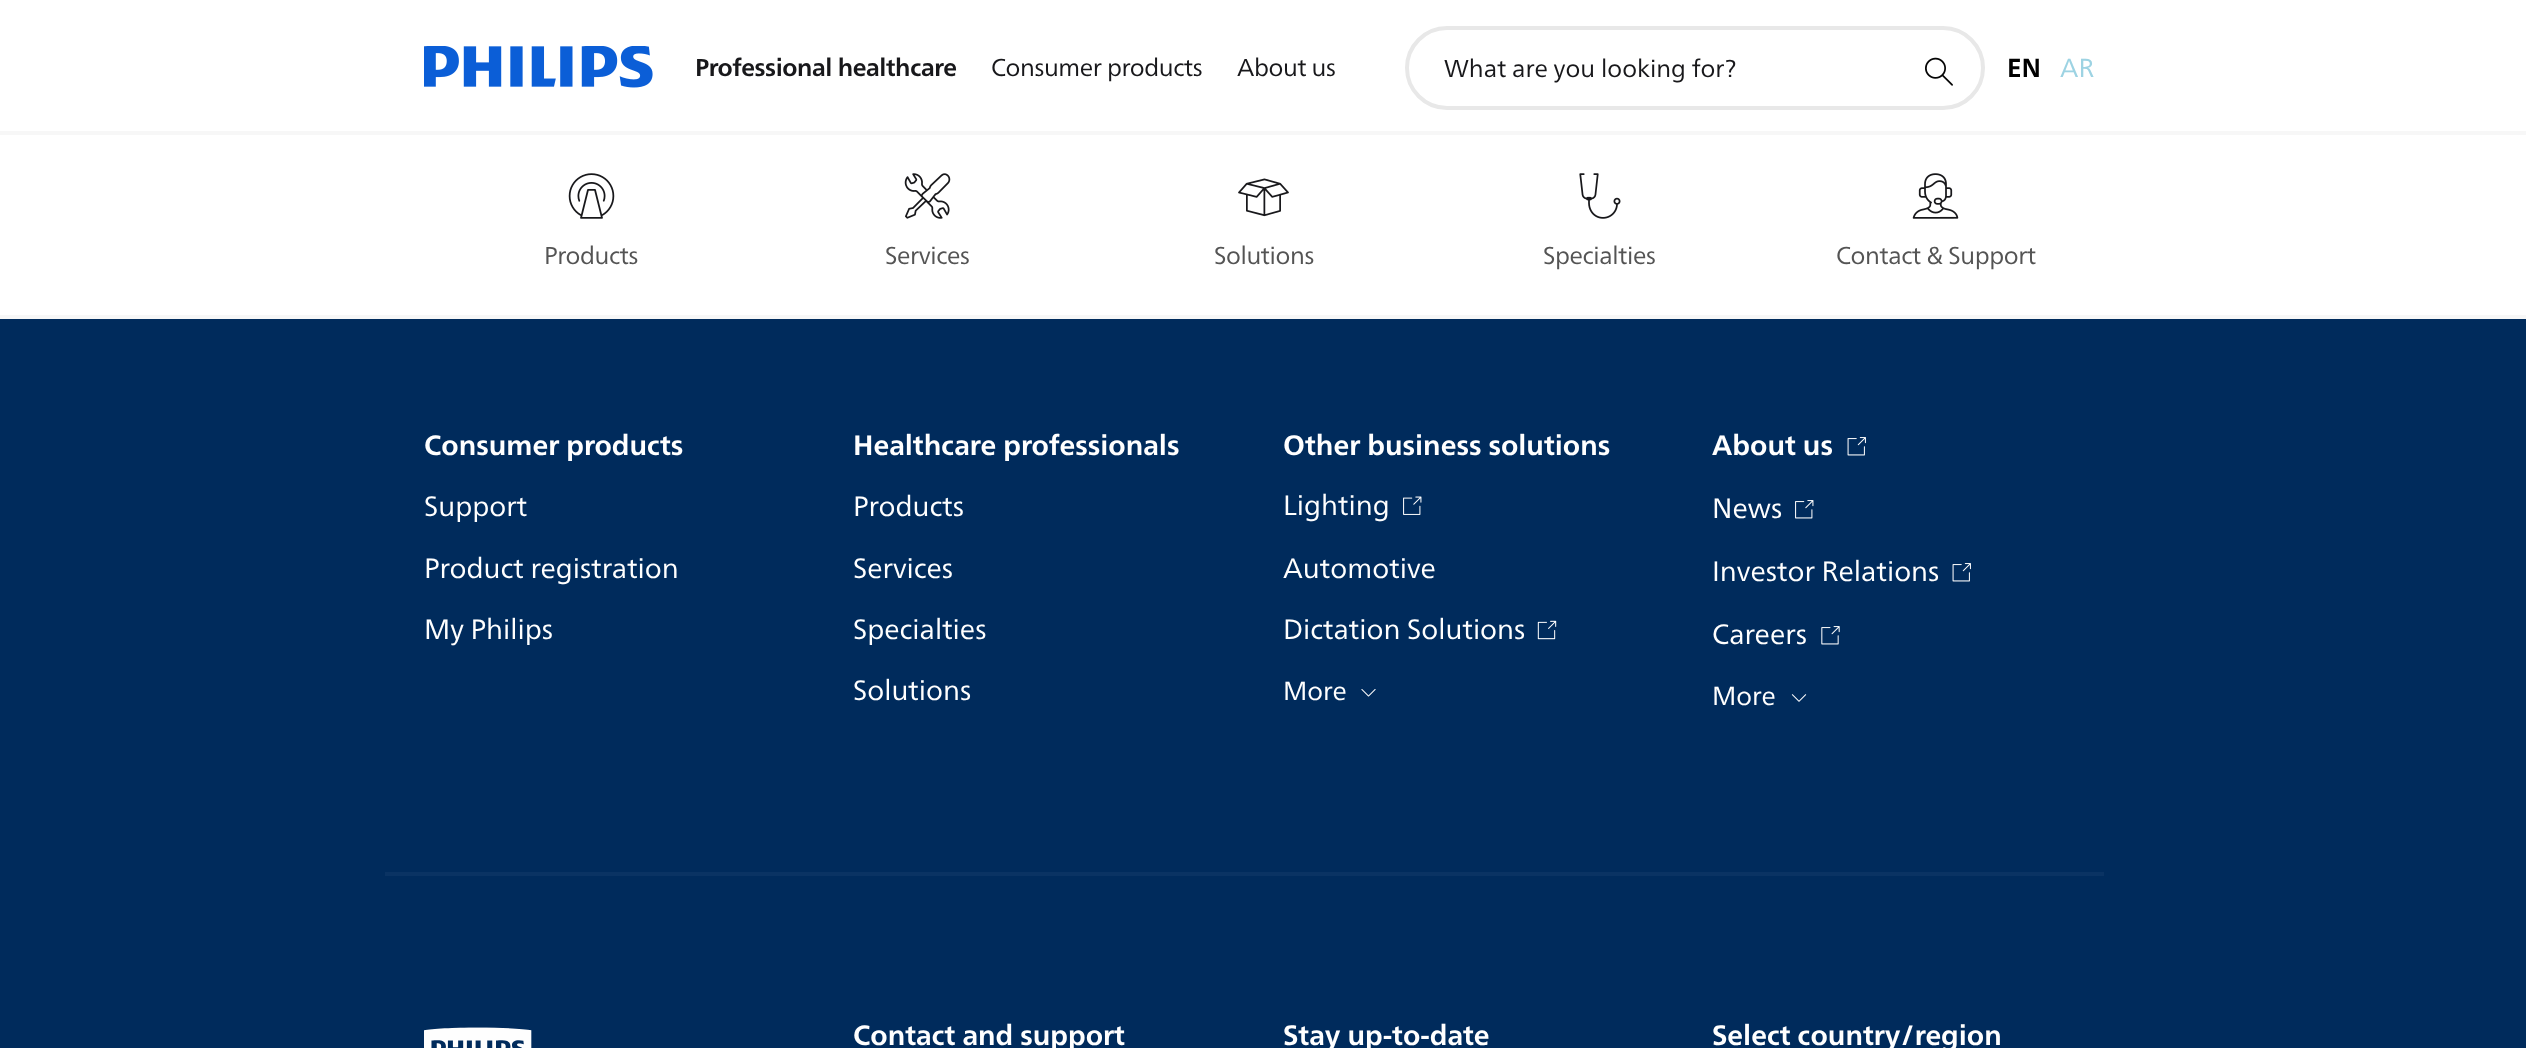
<?xml version="1.0" encoding="UTF-8"?>
<svg xmlns="http://www.w3.org/2000/svg" width="2526" height="1048">
    <rect width="100%" height="100%" fill="#FFFFFF"/>
    <image x="424" y="46" width="229" height="42" href="img_01.png"/>
    <text x="695" y="76" font-family="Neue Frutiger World" font-size="24.5" font-weight="700" letter-spacing="-0.4" fill="#18181B">Professional healthcare</text>
    <rect x="0" y="315" width="2526" height="4" fill="#F7F7F7"/>
    <image x="568" y="173" width="47" height="46" href="img_02.png"/>
    <text x="544" y="264" font-family="Neue Frutiger World" font-size="24.5" letter-spacing="-0.4" fill="#545454">Products</text>
    <image x="904" y="173" width="47" height="46" href="img_03.png"/>
    <text x="885" y="264" font-family="Neue Frutiger World" font-size="24.5" letter-spacing="-0.4" fill="#545454">Services</text>
    <image x="1238" y="178" width="51" height="39" href="img_04.png"/>
    <text x="1214" y="264" font-family="Neue Frutiger World" font-size="24.5" letter-spacing="-0.4" fill="#545454">Solutions</text>
    <image x="1579" y="173" width="42" height="46" href="img_05.png"/>
    <text x="1543" y="264" font-family="Neue Frutiger World" font-size="24.5" letter-spacing="-0.4" fill="#545454">Specialties</text>
    <image x="1912" y="173" width="47" height="46" href="img_06.png"/>
    <text x="1836" y="264" font-family="Neue Frutiger World" font-size="24.5" letter-spacing="-0.4" fill="#545454">Contact &amp; Support</text>
    <text x="991" y="76" font-family="Neue Frutiger World" font-size="24.5" letter-spacing="-0.4" fill="#18181B">Consumer products</text>
    <text x="1237" y="76" font-family="Neue Frutiger World" font-size="24.5" letter-spacing="-0.4" fill="#18181B">About us</text>
    <rect x="0" y="131" width="2526" height="4" fill="#F7F7F7"/>
    <rect x="1407" y="28" width="576" height="80" rx="40" fill="none" stroke="#E8E8E8" stroke-width="4"/>
    <text x="1444" y="77" font-family="Neue Frutiger World" font-size="24.5" fill="#18181B">What are you looking for?</text>
    <image x="1925" y="57" width="28" height="29" href="img_07.png"/>
    <text x="2007" y="77" font-family="Neue Frutiger World" font-size="26" font-weight="700" fill="#000000">EN</text>
    <text x="2060" y="77" font-family="Neue Frutiger World" font-size="26" fill="#9DD3E3">AR</text>
    <rect x="0" y="319" width="2526" height="729" fill="#002B5C"/>
    <text x="424" y="455" font-family="Neue Frutiger World" font-size="28" font-weight="700" fill="#FFFFFF">Consumer products</text>
    <text x="424" y="516" font-family="Neue Frutiger World" font-size="28" fill="#FFFFFF">Support</text>
    <text x="424" y="578" font-family="Neue Frutiger World" font-size="28" fill="#FFFFFF">Product registration</text>
    <text x="424" y="639" font-family="Neue Frutiger World" font-size="28" fill="#FFFFFF">My Philips</text>
    <text x="853" y="455" font-family="Neue Frutiger World" font-size="28" font-weight="700" fill="#FFFFFF">Healthcare professionals</text>
    <text x="853" y="516" font-family="Neue Frutiger World" font-size="28" fill="#FFFFFF">Products</text>
    <text x="853" y="578" font-family="Neue Frutiger World" font-size="28" fill="#FFFFFF">Services</text>
    <text x="853" y="639" font-family="Neue Frutiger World" font-size="28" fill="#FFFFFF">Specialties</text>
    <text x="853" y="700" font-family="Neue Frutiger World" font-size="28" fill="#FFFFFF">Solutions</text>
    <text x="1283" y="455" font-family="Neue Frutiger World" font-size="28" font-weight="700" fill="#FFFFFF">Other business solutions</text>
    <text x="1283" y="515" font-family="Neue Frutiger World" font-size="28" fill="#FFFFFF">Lighting</text>
    <image x="1403" y="496" width="19" height="19" href="img_08.png"/>
    <text x="1283" y="578" font-family="Neue Frutiger World" font-size="28" fill="#FFFFFF">Automotive</text>
    <text x="1283" y="639" font-family="Neue Frutiger World" font-size="28" fill="#FFFFFF">Dictation Solutions</text>
    <image x="1537" y="620" width="20" height="20" href="img_09.png"/>
    <text x="1283" y="700" font-family="Neue Frutiger World" font-size="26" fill="#FFFFFF">More</text>
    <image x="1361" y="689" width="15" height="8" href="img_10.png"/>
    <text x="1712" y="455" font-family="Neue Frutiger World" font-size="28" font-weight="700" fill="#FFFFFF">About us</text>
    <image x="1847" y="437" width="19" height="19" href="img_11.png"/>
    <text x="1712" y="518" font-family="Neue Frutiger World" font-size="28" fill="#FFFFFF">News</text>
    <image x="1795" y="500" width="19" height="19" href="img_12.png"/>
    <text x="1712" y="581" font-family="Neue Frutiger World" font-size="28" fill="#FFFFFF">Investor Relations</text>
    <image x="1952" y="563" width="19" height="19" href="img_11.png"/>
    <text x="1712" y="644" font-family="Neue Frutiger World" font-size="28" fill="#FFFFFF">Careers</text>
    <image x="1821" y="626" width="19" height="19" href="img_13.png"/>
    <text x="1712" y="705" font-family="Neue Frutiger World" font-size="26" fill="#FFFFFF">More</text>
    <image x="1791" y="694" width="16" height="8" href="img_14.png"/>
    <rect x="385" y="872" width="1719" height="4" fill="#0A3363"/>
    <text x="853" y="1045" font-family="Neue Frutiger World" font-size="28" font-weight="700" fill="#FFFFFF">Contact and support</text>
    <text x="1283" y="1045" font-family="Neue Frutiger World" font-size="28" font-weight="700" fill="#FFFFFF">Stay up-to-date</text>
    <text x="1712" y="1045" font-family="Neue Frutiger World" font-size="28" font-weight="700" fill="#FFFFFF">Select country/region</text>
    <image x="424" y="1027" width="108" height="21" href="img_15.png"/>
</svg>
